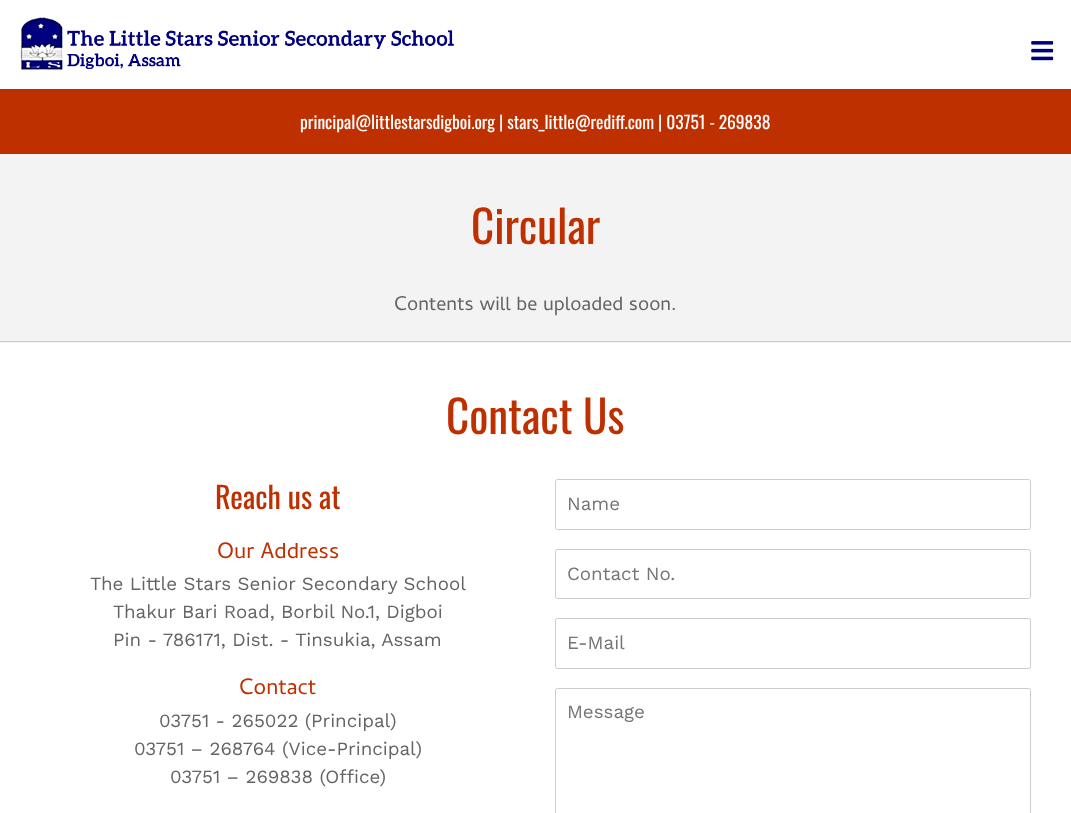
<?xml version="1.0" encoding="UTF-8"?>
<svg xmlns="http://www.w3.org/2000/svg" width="1071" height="813">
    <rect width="100%" height="100%" fill="#FFFFFF"/>
    <rect x="0" y="89" width="1071" height="65" fill="#BF3000"/>
    <image x="20" y="17" width="434" height="53" href="img_01.png"/>
    <image x="1031" y="41" width="23" height="20" href="img_02.png"/>
    <text x="300" y="129" font-family="Oswald" font-size="17.5" fill="#FFFFFF">principal@littlestarsdigboi.org | stars_little@rediff.com | 03751 - 269838</text>
    <rect x="0" y="154" width="1071" height="189" fill="#F3F3F3"/>
    <rect x="0" y="341" width="1071" height="1" fill="#CCCCCC"/>
    <text x="471" y="244" font-family="Oswald" font-size="45" fill="#BF3000">Circular</text>
    <text x="394" y="310" font-family="Cambay" font-size="20" fill="#646464">Contents will be uploaded soon.</text>
    <text x="446" y="434" font-family="Oswald" font-size="45" fill="#BF3000">Contact Us</text>
    <text x="215" y="509" font-family="Oswald" font-size="30" fill="#BF3000">Reach us at</text>
    <text x="217" y="558" font-family="Cambay" font-size="22.5" fill="#BF3000">Our Address</text>
    <text x="90" y="590" font-family="Work Sans" font-size="18.75" fill="#646464">The Little Stars Senior Secondary School</text>
    <text font-family="Work Sans" font-size="18.75" fill="#646464">
        <tspan x="113" y="618">Thakur Bari Road, Borbil No.1, Digboi</tspan>
        <tspan x="113" y="646">Pin - 786171, Dist. - Tinsukia, Assam</tspan>
    </text>
    <text x="239" y="694" font-family="Cambay" font-size="22.5" fill="#BF3000">Contact</text>
    <text x="159" y="727" font-family="Work Sans" font-size="18.75" fill="#646464">03751 - 265022 (Principal)</text>
    <text x="134" y="755" font-family="Work Sans" font-size="18.75" fill="#646464">03751 – 268764 (Vice-Principal)</text>
    <text x="170" y="783" font-family="Work Sans" font-size="18.75" fill="#646464">03751 – 269838 (Office)</text>
    <rect x="555.5" y="479.5" width="475" height="50" rx="2" fill="none" stroke="#CCCCCC"/>
    <text x="567" y="510" font-family="Work Sans" font-size="18.75" fill="#757575">Name</text>
    <rect x="555.5" y="549.5" width="475" height="49" rx="2" fill="none" stroke="#CCCCCC"/>
    <text x="567" y="580" font-family="Work Sans" font-size="18.75" fill="#757575">Contact No.</text>
    <rect x="555.5" y="618.5" width="475" height="50" rx="2" fill="none" stroke="#CCCCCC"/>
    <text x="567" y="649" font-family="Work Sans" font-size="18.75" fill="#757575">E-Mail</text>
    <rect x="555.5" y="688.5" width="475" height="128" rx="2" fill="none" stroke="#CCCCCC"/>
    <text x="567" y="718" font-family="Work Sans" font-size="18.75" fill="#757575">Message</text>
</svg>
